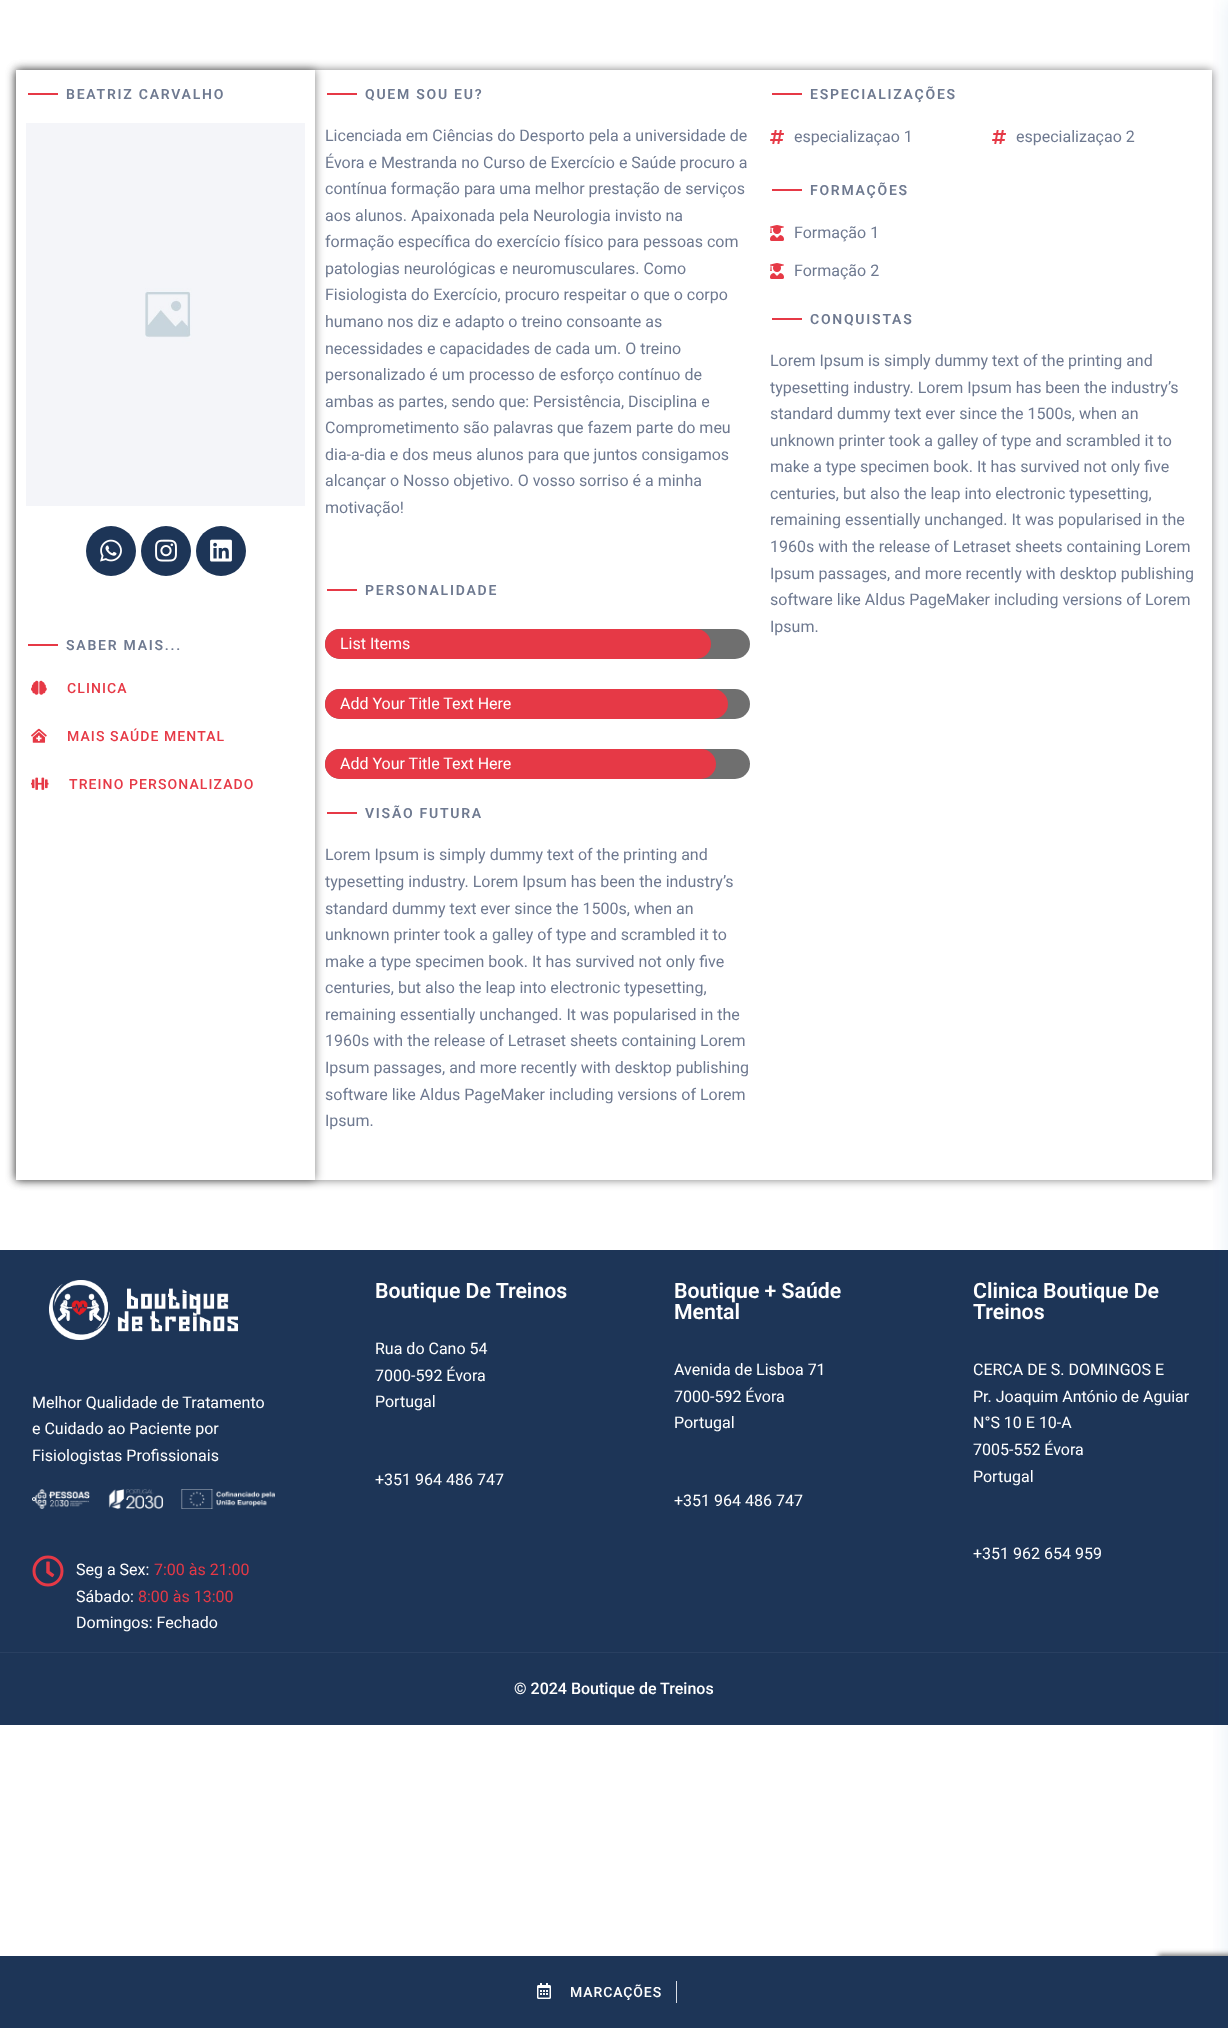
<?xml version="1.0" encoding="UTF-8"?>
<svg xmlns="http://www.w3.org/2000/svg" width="1228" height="2028">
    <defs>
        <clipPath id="clip1"><path d="M 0 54 H 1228 V 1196 H 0 Z M 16 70 H 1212 V 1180 H 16 Z" clip-rule="evenodd"/></clipPath>
        <filter id="blur1" x="-50%" y="-200%" width="200%" height="500%"><feGaussianBlur stdDeviation="5"/></filter>
        <clipPath id="clip2"><path d="M 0 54 H 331 V 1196 H 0 Z M 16 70 H 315 V 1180 H 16 Z" clip-rule="evenodd"/></clipPath>
        <filter id="blur2" x="-50%" y="-200%" width="200%" height="500%"><feGaussianBlur stdDeviation="10"/></filter>
        <filter id="blur3" x="-50%" y="-200%" width="200%" height="500%"><feGaussianBlur stdDeviation="2.5"/></filter>
    </defs>
    <rect width="100%" height="100%" fill="#FFFFFF"/>
    <g clip-path="url(#clip1)">
        <rect x="16" y="70" width="1196" height="1110" fill="#000000" fill-opacity="0.5" filter="url(#blur1)"/>
    </g>
    <g clip-path="url(#clip2)">
        <rect x="16" y="70" width="299" height="1110" fill="#000000" fill-opacity="0.5" filter="url(#blur1)"/>
    </g>
    <rect x="28" y="93" width="30" height="2" fill="#E63946"/>
    <text x="66" y="99" font-family="Roboto" font-size="14" font-weight="600" letter-spacing="1.75" fill="#6E7990">BEATRIZ CARVALHO</text>
    <image x="26" y="123" width="279" height="383" href="img_01.png"/>
    <circle cx="111" cy="551" r="25" fill="#1D3557"/>
    <image x="100" y="539" width="22" height="23" href="img_02.png"/>
    <circle cx="166" cy="551" r="25" fill="#1D3557"/>
    <image x="155" y="539" width="22" height="23" href="img_03.png"/>
    <circle cx="221" cy="551" r="25" fill="#1D3557"/>
    <image x="210" y="539" width="22" height="23" href="img_04.png"/>
    <rect x="28" y="644" width="30" height="2" fill="#E63946"/>
    <text x="66" y="650" font-family="Roboto" font-size="14" font-weight="600" letter-spacing="1.75" fill="#6E7990">SABER MAIS...</text>
    <image x="31" y="680" width="16" height="15" href="img_05.png"/>
    <text x="67" y="693" font-family="Roboto" font-size="14" font-weight="500" letter-spacing="1.1" fill="#E63946">CLINICA</text>
    <image x="31" y="728" width="16" height="15" href="img_06.png"/>
    <text x="67" y="741" font-family="Roboto" font-size="14" font-weight="500" letter-spacing="1.1" fill="#E63946">MAIS SAÚDE MENTAL</text>
    <image x="31" y="777" width="18" height="13" href="img_07.png"/>
    <text x="69" y="789" font-family="Roboto" font-size="14" font-weight="500" letter-spacing="1.1" fill="#E63946">TREINO PERSONALIZADO</text>
    <rect x="327" y="93" width="30" height="2" fill="#E63946"/>
    <text x="365" y="99" font-family="Roboto" font-size="14" font-weight="600" letter-spacing="1.75" fill="#6E7990">QUEM SOU EU?</text>
    <text font-family="Roboto" font-size="16" fill="#6E7990">
        <tspan x="325" y="141">Licenciada em Ciências do Desporto pela a universidade de</tspan>
        <tspan x="325" y="168">Évora e Mestranda no Curso de Exercício e Saúde procuro a</tspan>
        <tspan x="325" y="194">contínua formação para uma melhor prestação de serviços</tspan>
        <tspan x="325" y="221">aos alunos. Apaixonada pela Neurologia invisto na</tspan>
        <tspan x="325" y="247">formação específica do exercício físico para pessoas com</tspan>
        <tspan x="325" y="274">patologias neurológicas e neuromusculares. Como</tspan>
        <tspan x="325" y="300">Fisiologista do Exercício, procuro respeitar o que o corpo</tspan>
        <tspan x="325" y="327">humano nos diz e adapto o treino consoante as</tspan>
        <tspan x="325" y="354">necessidades e capacidades de cada um. O treino</tspan>
        <tspan x="325" y="380">personalizado é um processo de esforço contínuo de</tspan>
        <tspan x="325" y="407">ambas as partes, sendo que: Persistência, Disciplina e</tspan>
        <tspan x="325" y="433">Comprometimento são palavras que fazem parte do meu</tspan>
        <tspan x="325" y="460">dia-a-dia e dos meus alunos para que juntos consigamos</tspan>
        <tspan x="325" y="486">alcançar o Nosso objetivo. O vosso sorriso é a minha</tspan>
        <tspan x="325" y="513">motivação!</tspan>
    </text>
    <rect x="327" y="589" width="30" height="2" fill="#E63946"/>
    <text x="365" y="595" font-family="Roboto" font-size="14" font-weight="600" letter-spacing="1.75" fill="#6E7990">PERSONALIDADE</text>
    <rect x="325" y="629" width="425" height="30" rx="15" fill="#6F6F6F"/>
    <rect x="325" y="629" width="386" height="30" rx="15" fill="#E63946"/>
    <text x="340" y="649" font-family="Roboto" font-size="16" fill="#FFFFFF">List Items</text>
    <rect x="325" y="689" width="425" height="30" rx="15" fill="#6F6F6F"/>
    <rect x="325" y="689" width="403" height="30" rx="15" fill="#E63946"/>
    <text x="340" y="709" font-family="Roboto" font-size="16" fill="#FFFFFF">Add Your Title Text Here</text>
    <rect x="325" y="749" width="425" height="30" rx="15" fill="#6F6F6F"/>
    <rect x="325" y="749" width="391" height="30" rx="15" fill="#E63946"/>
    <text x="340" y="769" font-family="Roboto" font-size="16" fill="#FFFFFF">Add Your Title Text Here</text>
    <rect x="327" y="812" width="30" height="2" fill="#E63946"/>
    <text x="365" y="818" font-family="Roboto" font-size="14" font-weight="600" letter-spacing="1.75" fill="#6E7990">VISÃO FUTURA</text>
    <text font-family="Roboto" font-size="16" fill="#6E7990">
        <tspan x="325" y="860">Lorem Ipsum is simply dummy text of the printing and</tspan>
        <tspan x="325" y="887">typesetting industry. Lorem Ipsum has been the industry’s</tspan>
        <tspan x="325" y="914">standard dummy text ever since the 1500s, when an</tspan>
        <tspan x="325" y="940">unknown printer took a galley of type and scrambled it to</tspan>
        <tspan x="325" y="967">make a type specimen book. It has survived not only five</tspan>
        <tspan x="325" y="993">centuries, but also the leap into electronic typesetting,</tspan>
        <tspan x="325" y="1020">remaining essentially unchanged. It was popularised in the</tspan>
        <tspan x="325" y="1046">1960s with the release of Letraset sheets containing Lorem</tspan>
        <tspan x="325" y="1073">Ipsum passages, and more recently with desktop publishing</tspan>
        <tspan x="325" y="1100">software like Aldus PageMaker including versions of Lorem</tspan>
        <tspan x="325" y="1126">Ipsum.</tspan>
    </text>
    <rect x="772" y="93" width="30" height="2" fill="#E63946"/>
    <text x="810" y="99" font-family="Roboto" font-size="14" font-weight="600" letter-spacing="1.75" fill="#6E7990">ESPECIALIZAÇÕES</text>
    <image x="770" y="130" width="14" height="14" href="img_08.png"/>
    <text x="794" y="142" font-family="Roboto" font-size="16" fill="#6E7990">especializaçao 1</text>
    <image x="992" y="130" width="14" height="14" href="img_08.png"/>
    <text x="1016" y="142" font-family="Roboto" font-size="16" fill="#6E7990">especializaçao 2</text>
    <rect x="772" y="189" width="30" height="2" fill="#E63946"/>
    <text x="810" y="195" font-family="Roboto" font-size="14" font-weight="600" letter-spacing="1.75" fill="#6E7990">FORMAÇÕES</text>
    <image x="770" y="225" width="14" height="16" href="img_09.png"/>
    <text x="794" y="238" font-family="Roboto" font-size="16" fill="#6E7990">Formação 1</text>
    <image x="770" y="263" width="14" height="16" href="img_09.png"/>
    <text x="794" y="276" font-family="Roboto" font-size="16" fill="#6E7990">Formação 2</text>
    <rect x="772" y="318" width="30" height="2" fill="#E63946"/>
    <text x="810" y="324" font-family="Roboto" font-size="14" font-weight="600" letter-spacing="1.75" fill="#6E7990">CONQUISTAS</text>
    <text font-family="Roboto" font-size="16" fill="#6E7990">
        <tspan x="770" y="366">Lorem Ipsum is simply dummy text of the printing and</tspan>
        <tspan x="770" y="393">typesetting industry. Lorem Ipsum has been the industry’s</tspan>
        <tspan x="770" y="419">standard dummy text ever since the 1500s, when an</tspan>
        <tspan x="770" y="446">unknown printer took a galley of type and scrambled it to</tspan>
        <tspan x="770" y="472">make a type specimen book. It has survived not only five</tspan>
        <tspan x="770" y="499">centuries, but also the leap into electronic typesetting,</tspan>
        <tspan x="770" y="525">remaining essentially unchanged. It was popularised in the</tspan>
        <tspan x="770" y="552">1960s with the release of Letraset sheets containing Lorem</tspan>
        <tspan x="770" y="579">Ipsum passages, and more recently with desktop publishing</tspan>
        <tspan x="770" y="605">software like Aldus PageMaker including versions of Lorem</tspan>
        <tspan x="770" y="632">Ipsum.</tspan>
    </text>
    <rect x="0" y="1250" width="1228" height="402" fill="#1D3557"/>
    <image x="49" y="1280" width="189" height="60" href="img_10.png"/>
    <text font-family="Roboto" font-size="16" fill="#FFFFFF">
        <tspan x="32" y="1408">Melhor Qualidade de Tratamento</tspan>
        <tspan x="32" y="1434">e Cuidado ao Paciente por</tspan>
        <tspan x="32" y="1461">Fisiologistas Profissionais</tspan>
    </text>
    <image x="32" y="1489" width="243" height="20" href="img_11.png"/>
    <image x="32" y="1555" width="32" height="32" href="img_12.png"/>
    <text x="76" y="1575" font-family="Roboto" font-size="16" fill="#FFFFFF">Seg a Sex:</text>
    <text x="154" y="1575" font-family="Roboto" font-size="16" fill="#E63946">7:00 às 21:00</text>
    <text x="76" y="1602" font-family="Roboto" font-size="16" fill="#FFFFFF">Sábado:</text>
    <text x="138" y="1602" font-family="Roboto" font-size="16" fill="#E63946">8:00 às 13:00</text>
    <text x="76" y="1628" font-family="Roboto" font-size="16" fill="#FFFFFF">Domingos: Fechado</text>
    <text x="375" y="1298" font-family="Roboto" font-size="21.25" font-weight="600" fill="#FFFFFF">Boutique De Treinos</text>
    <text font-family="Roboto" font-size="16" fill="#FFFFFF">
        <tspan x="375" y="1354">Rua do Cano 54</tspan>
        <tspan x="375" y="1381">7000-592 Évora</tspan>
        <tspan x="375" y="1407">Portugal</tspan>
    </text>
    <text x="375" y="1485" font-family="Roboto" font-size="16" fill="#FFFFFF">+351 964 486 747</text>
    <text font-family="Roboto" font-size="21.25" font-weight="600" fill="#FFFFFF">
        <tspan x="674" y="1298">Boutique + Saúde</tspan>
        <tspan x="674" y="1319">Mental</tspan>
    </text>
    <text font-family="Roboto" font-size="16" fill="#FFFFFF">
        <tspan x="674" y="1375">Avenida de Lisboa 71</tspan>
        <tspan x="674" y="1402">7000-592 Évora</tspan>
        <tspan x="674" y="1428">Portugal</tspan>
    </text>
    <text x="674" y="1506" font-family="Roboto" font-size="16" fill="#FFFFFF">+351 964 486 747</text>
    <text font-family="Roboto" font-size="21.25" font-weight="600" fill="#FFFFFF">
        <tspan x="973" y="1298">Clinica Boutique De</tspan>
        <tspan x="973" y="1319">Treinos</tspan>
    </text>
    <text font-family="Roboto" font-size="16" fill="#FFFFFF">
        <tspan x="973" y="1375">CERCA DE S. DOMINGOS E</tspan>
        <tspan x="973" y="1402">Pr. Joaquim António de Aguiar</tspan>
        <tspan x="973" y="1428">N°S 10 E 10-A</tspan>
        <tspan x="973" y="1455">7005-552 Évora</tspan>
        <tspan x="973" y="1482">Portugal</tspan>
    </text>
    <text x="973" y="1559" font-family="Roboto" font-size="16" fill="#FFFFFF">+351 962 654 959</text>
    <rect x="0" y="1653" width="1228" height="72" fill="#1D3557"/>
    <rect x="0" y="1652" width="1228" height="1" fill="#294061"/>
    <text x="514" y="1694" font-family="Roboto" font-size="16" font-weight="500" fill="#FFFFFF">© 2024 Boutique de Treinos</text>
    <rect x="1228" y="0" width="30" height="2028" fill="#2C6590" fill-opacity="0.1" filter="url(#blur2)"/>
    <rect x="1158" y="1954" width="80" height="60" rx="2" fill="#808080" filter="url(#blur3)"/>
    <rect x="0" y="1956" width="1228" height="72" fill="#1D3557"/>
    <image x="537" y="1983" width="14" height="16" href="img_13.png"/>
    <text x="570" y="1997" font-family="Roboto" font-size="14" font-weight="500" letter-spacing="0.9" fill="#FFFFFF">MARCAÇÕES</text>
    <rect x="676" y="1981" width="1" height="22" fill="#DBDFE7"/>
</svg>
